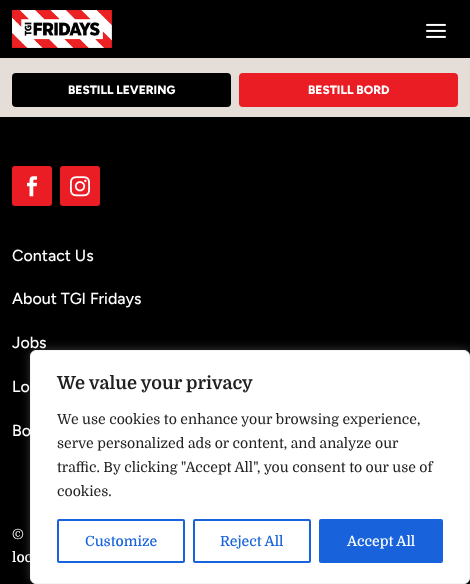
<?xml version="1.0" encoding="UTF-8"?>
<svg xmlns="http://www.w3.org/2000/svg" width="470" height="584">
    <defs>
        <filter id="blur1" x="-50%" y="-200%" width="200%" height="500%"><feGaussianBlur stdDeviation="5"/></filter>
    </defs>
    <rect width="100%" height="100%" fill="#000000"/>
    <image x="12" y="10" width="100" height="38" href="img_01.png"/>
    <image x="426" y="23" width="20" height="15" href="img_02.png"/>
    <rect x="0" y="58" width="470" height="59" fill="#E5DED8"/>
    <rect x="12" y="73" width="219" height="34" rx="4" fill="#000000"/>
    <text x="68" y="94" font-family="Figtree" font-size="12" font-weight="800" fill="#FFFFFF">BESTILL LEVERING</text>
    <rect x="239" y="73" width="219" height="34" rx="4" fill="#EA1D25"/>
    <text x="308" y="94" font-family="Figtree" font-size="12" font-weight="800" fill="#FFFFFF">BESTILL BORD</text>
    <rect x="12" y="166" width="40" height="40" rx="3" fill="#EA1D25"/>
    <image x="27" y="176" width="10" height="21" href="img_03.png"/>
    <rect x="60" y="166" width="40" height="40" rx="3" fill="#EA1D25"/>
    <image x="70" y="176" width="20" height="21" href="img_04.png"/>
    <text x="12" y="261" font-family="Figtree" font-size="16" font-weight="300" fill="#FFFFFF">Contact Us</text>
    <text x="12" y="304" font-family="Figtree" font-size="16" font-weight="300" fill="#FFFFFF">About TGI Fridays</text>
    <text x="12" y="348" font-family="Figtree" font-size="16" font-weight="300" fill="#FFFFFF">Jobs</text>
    <text x="12" y="392" font-family="Figtree" font-size="16" font-weight="300" fill="#FFFFFF">Lo</text>
    <text x="12" y="436" font-family="Figtree" font-size="16" font-weight="300" fill="#FFFFFF">Bo</text>
    <text font-family="Domine" font-size="14" font-weight="500" fill="#FFFFFF">
        <tspan x="12" y="539">©</tspan>
        <tspan x="12" y="562">loc</tspan>
    </text>
    <rect x="30" y="349" width="440" height="234" rx="6" fill="#ACABAB" fill-opacity="0.3" filter="url(#blur1)"/>
    <rect x="30.5" y="350.5" width="439" height="233" rx="5.5" fill="#FFFFFF" stroke="#F4F4F4"/>
    <text x="57" y="389" font-family="Domine" font-size="18" font-weight="700" fill="#212121">We value your privacy</text>
    <text font-family="Domine" font-size="14" fill="#212121">
        <tspan x="57" y="424">We use cookies to enhance your browsing experience,</tspan>
        <tspan x="57" y="448">serve personalized ads or content, and analyze our</tspan>
        <tspan x="57" y="472">traffic. By clicking "Accept All", you consent to our use of</tspan>
        <tspan x="57" y="496">cookies.</tspan>
    </text>
    <rect x="58" y="520" width="126" height="42" rx="1" fill="none" stroke="#1863DC" stroke-width="2"/>
    <text x="85" y="546" font-family="Domine" font-size="14" font-weight="500" fill="#1863DC">Customize</text>
    <rect x="194" y="520" width="116" height="42" rx="1" fill="none" stroke="#1863DC" stroke-width="2"/>
    <text x="220" y="546" font-family="Domine" font-size="14" font-weight="500" fill="#1863DC">Reject All</text>
    <rect x="320" y="520" width="122" height="42" rx="1" fill="#1863DC" stroke="#1863DC" stroke-width="2"/>
    <text x="347" y="546" font-family="Domine" font-size="14" font-weight="500" fill="#FFFFFF">Accept All</text>
</svg>
